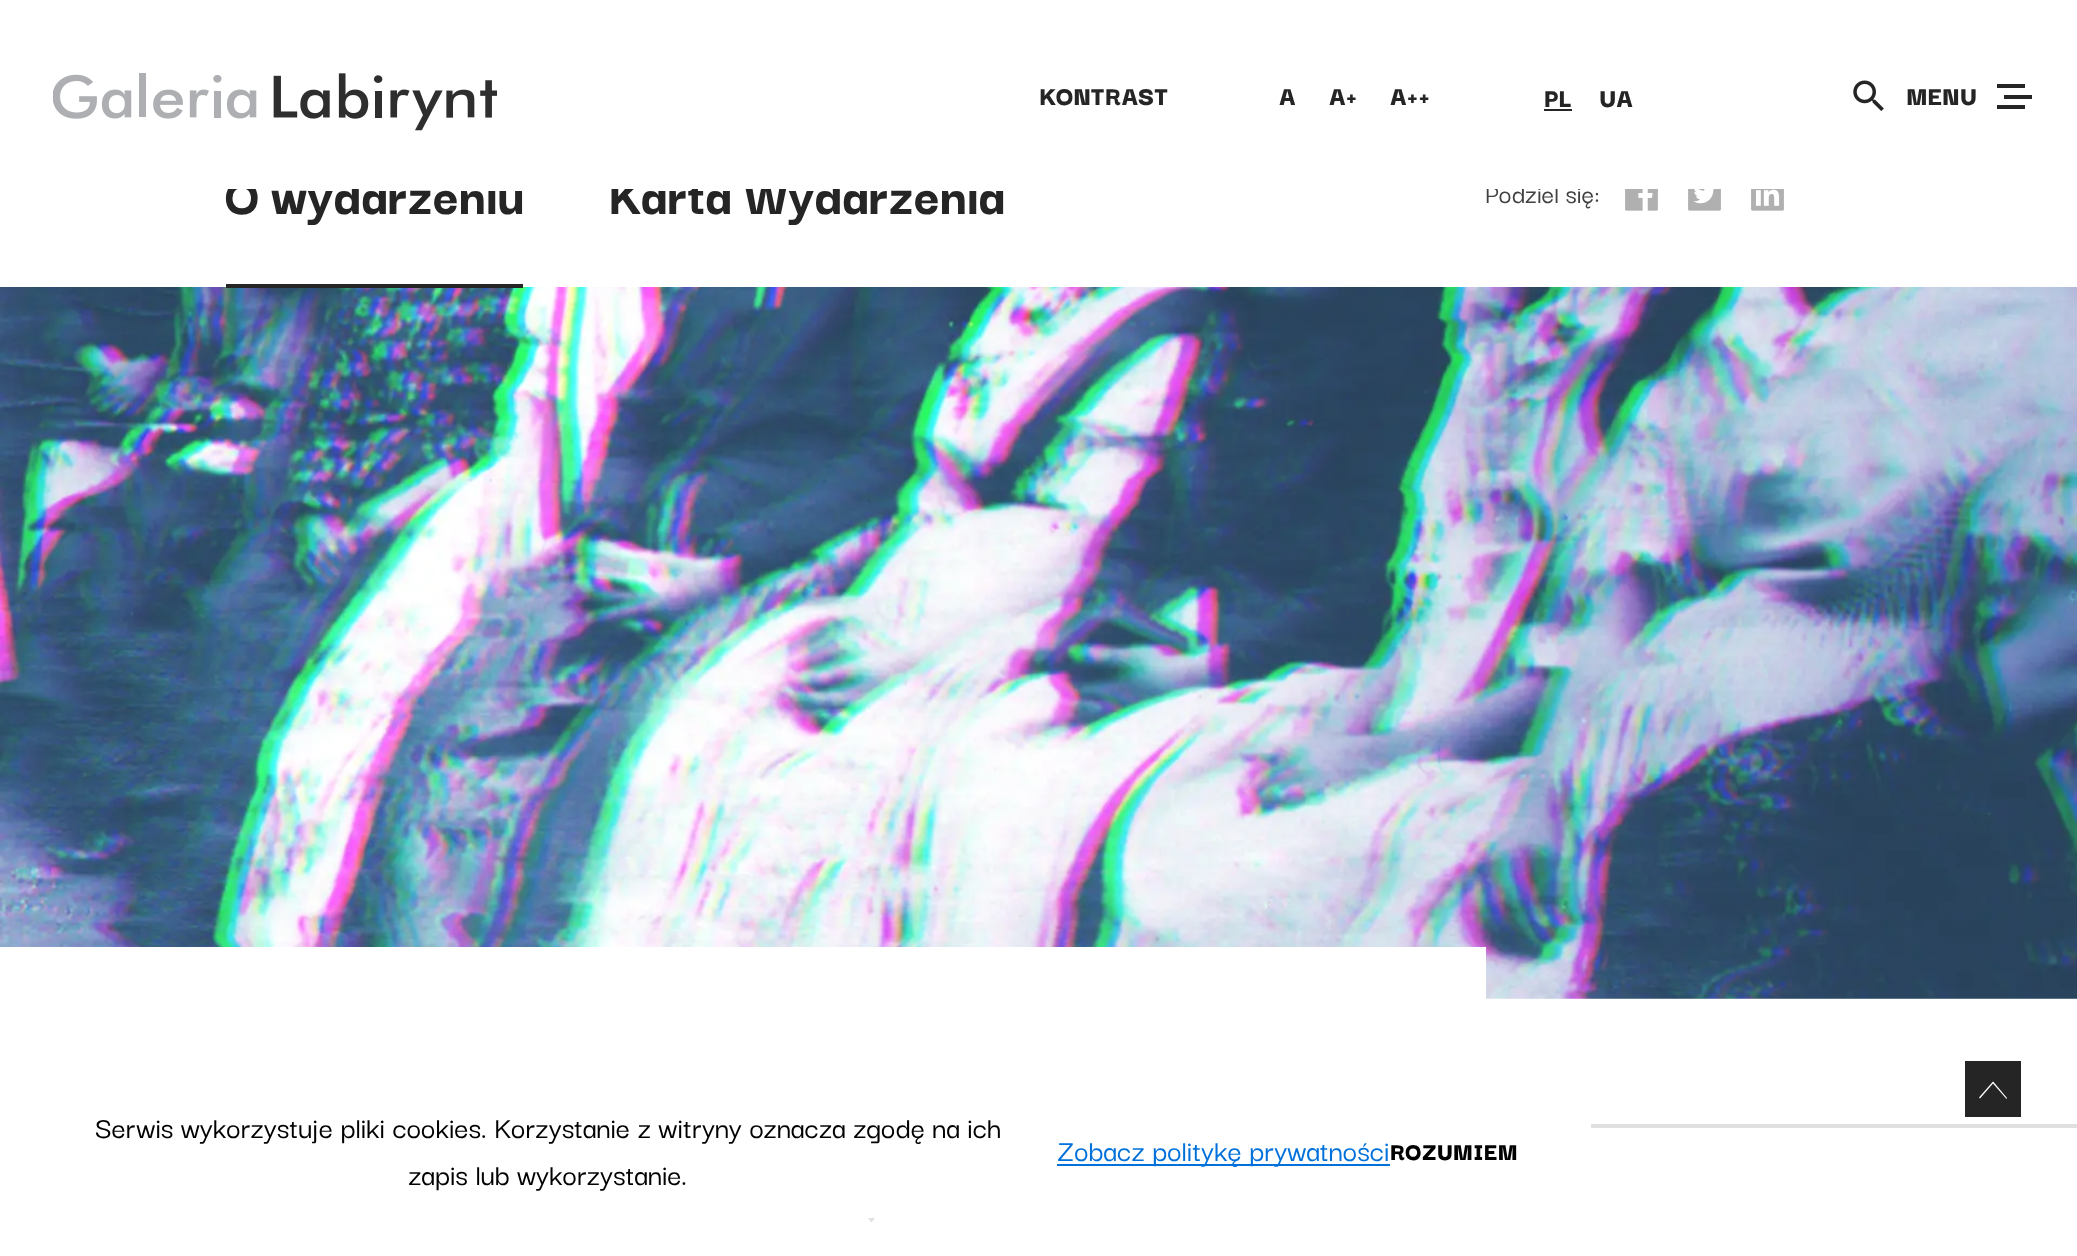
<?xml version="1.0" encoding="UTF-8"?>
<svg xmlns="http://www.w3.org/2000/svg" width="2077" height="1256">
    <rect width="100%" height="100%" fill="#FFFFFF"/>
    <text x="225" y="214" font-family="Darker Grotesque" font-size="56" font-weight="800" fill="#252525">O wydarzeniu</text>
    <text x="608" y="214" font-family="Darker Grotesque" font-size="56" font-weight="800" fill="#252525">Karta Wydarzenia</text>
    <text x="1485" y="203" font-family="Darker Grotesque" font-size="28" font-weight="500" fill="#404040">Podziel się:</text>
    <rect x="228" y="181" width="1353" height="8" fill="#FFFFFF"/>
    <image x="53" y="73" width="444" height="58" href="img_01.png"/>
    <text x="1039" y="105" font-family="Darker Grotesque" font-size="28" font-weight="900" fill="#252525">KONTRAST</text>
    <text x="1279" y="105" font-family="Darker Grotesque" font-size="28" font-weight="900" fill="#252525">A</text>
    <text x="1329" y="105" font-family="Darker Grotesque" font-size="28" font-weight="900" fill="#252525">A+</text>
    <text x="1390" y="105" font-family="Darker Grotesque" font-size="28" font-weight="900" fill="#252525">A++</text>
    <text x="1544" y="107" font-family="Darker Grotesque" font-size="28" font-weight="900" fill="#252525">PL</text>
    <rect x="1544" y="109" width="28" height="2" fill="#252525"/>
    <text x="1599" y="107" font-family="Darker Grotesque" font-size="28" font-weight="900" fill="#252525">UA</text>
    <image x="1853" y="80" width="31" height="31" href="img_02.png"/>
    <text x="1906" y="105" font-family="Darker Grotesque" font-size="28" font-weight="900" fill="#252525">MENU</text>
    <rect x="1997" y="84" width="28" height="4" fill="#252525"/>
    <rect x="1997" y="105" width="28" height="4" fill="#252525"/>
    <rect x="2004" y="95" width="28" height="4" fill="#252525"/>
    <image x="0" y="287" width="2077" height="712" href="img_06.png"/>
    <rect x="226" y="284" width="297" height="4" fill="#252525"/>
    <image x="1625" y="189" width="33" height="22" href="img_03.png"/>
    <image x="1688" y="189" width="33" height="22" href="img_04.png"/>
    <image x="1751" y="189" width="33" height="22" href="img_05.png"/>
    <rect x="0" y="947" width="1486" height="52" fill="#FFFFFF"/>
    <rect x="1591" y="1124" width="486" height="4" fill="#E0E0E0"/>
    <image x="868" y="1218" width="7" height="4" href="img_07.png"/>
    <rect x="1965" y="1061" width="56" height="56" fill="#252525"/>
    <path d="M 1994 1082.5 L 1993 1081.5 L 1979 1097.5 L 1980 1098.5 L 1993 1083.5 L 2006.5 1099 L 2007 1098 Z" fill="#FFFFFF" fill-rule="evenodd"/>
    <text x="95" y="1138" font-family="Darker Grotesque" font-size="31.5" font-weight="500" fill="#000000">Serwis wykorzystuje pliki cookies. Korzystanie z witryny oznacza zgodę na ich</text>
    <text x="408" y="1185" font-family="Darker Grotesque" font-size="31.5" font-weight="500" fill="#000000">zapis lub wykorzystanie.</text>
    <rect x="1057" y="1164" width="333" height="2" fill="#0071DB"/>
    <text x="1057" y="1161" font-family="Darker Grotesque" font-size="31.5" font-weight="500" fill="#0071DB">Zobacz politykę prywatności</text>
    <text x="1390" y="1160" font-family="Darker Grotesque" font-size="26.25" font-weight="900" fill="#000000">ROZUMIEM</text>
</svg>
